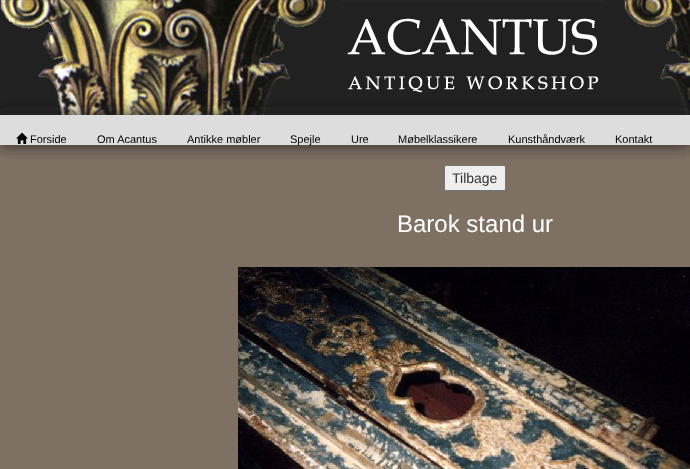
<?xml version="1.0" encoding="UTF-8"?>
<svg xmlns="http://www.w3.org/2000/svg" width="690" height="469">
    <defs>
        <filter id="blur1" x="-50%" y="-200%" width="200%" height="500%"><feGaussianBlur stdDeviation="7.5"/></filter>
    </defs>
    <rect width="100%" height="100%" fill="#7E7063"/>
    <rect x="0" y="0" width="690" height="115" fill="#212121"/>
    <image x="0" y="0" width="327" height="115" href="img_01.png"/>
    <image x="341" y="0" width="263" height="93" href="img_02.png"/>
    <image x="623" y="0" width="67" height="115" href="img_03.png"/>
    <rect x="444.5" y="165.5" width="61" height="25" rx="1.5" fill="#EFEFEF" stroke="#767676"/>
    <rect x="0" y="115" width="690" height="30" fill="#212121" filter="url(#blur1)"/>
    <rect x="0" y="115" width="690" height="30" fill="#DDDDDD"/>
    <image x="16" y="132" width="12" height="12" href="img_04.png"/>
    <text x="30" y="143" font-family="Liberation Sans" font-size="11" fill="#000000">Forside</text>
    <text x="97" y="143" font-family="Liberation Sans" font-size="11" fill="#000000">Om Acantus</text>
    <text x="187" y="143" font-family="Liberation Sans" font-size="11" fill="#000000">Antikke møbler</text>
    <text x="290" y="143" font-family="Liberation Sans" font-size="11" fill="#000000">Spejle</text>
    <text x="351" y="143" font-family="Liberation Sans" font-size="11" fill="#000000">Ure</text>
    <text x="398" y="143" font-family="Liberation Sans" font-size="11" fill="#000000">Møbelklassikere</text>
    <text x="508" y="143" font-family="Liberation Sans" font-size="11" fill="#000000">Kunsthåndværk</text>
    <text x="615" y="143" font-family="Liberation Sans" font-size="11" fill="#000000">Kontakt</text>
    <text x="452" y="183" font-family="Liberation Sans" font-size="14" fill="#333333">Tilbage</text>
    <text x="397" y="232" font-family="Liberation Sans" font-size="24" fill="#FFFFFF">Barok stand ur</text>
    <image x="238" y="267" width="452" height="202" href="img_05.png"/>
</svg>
